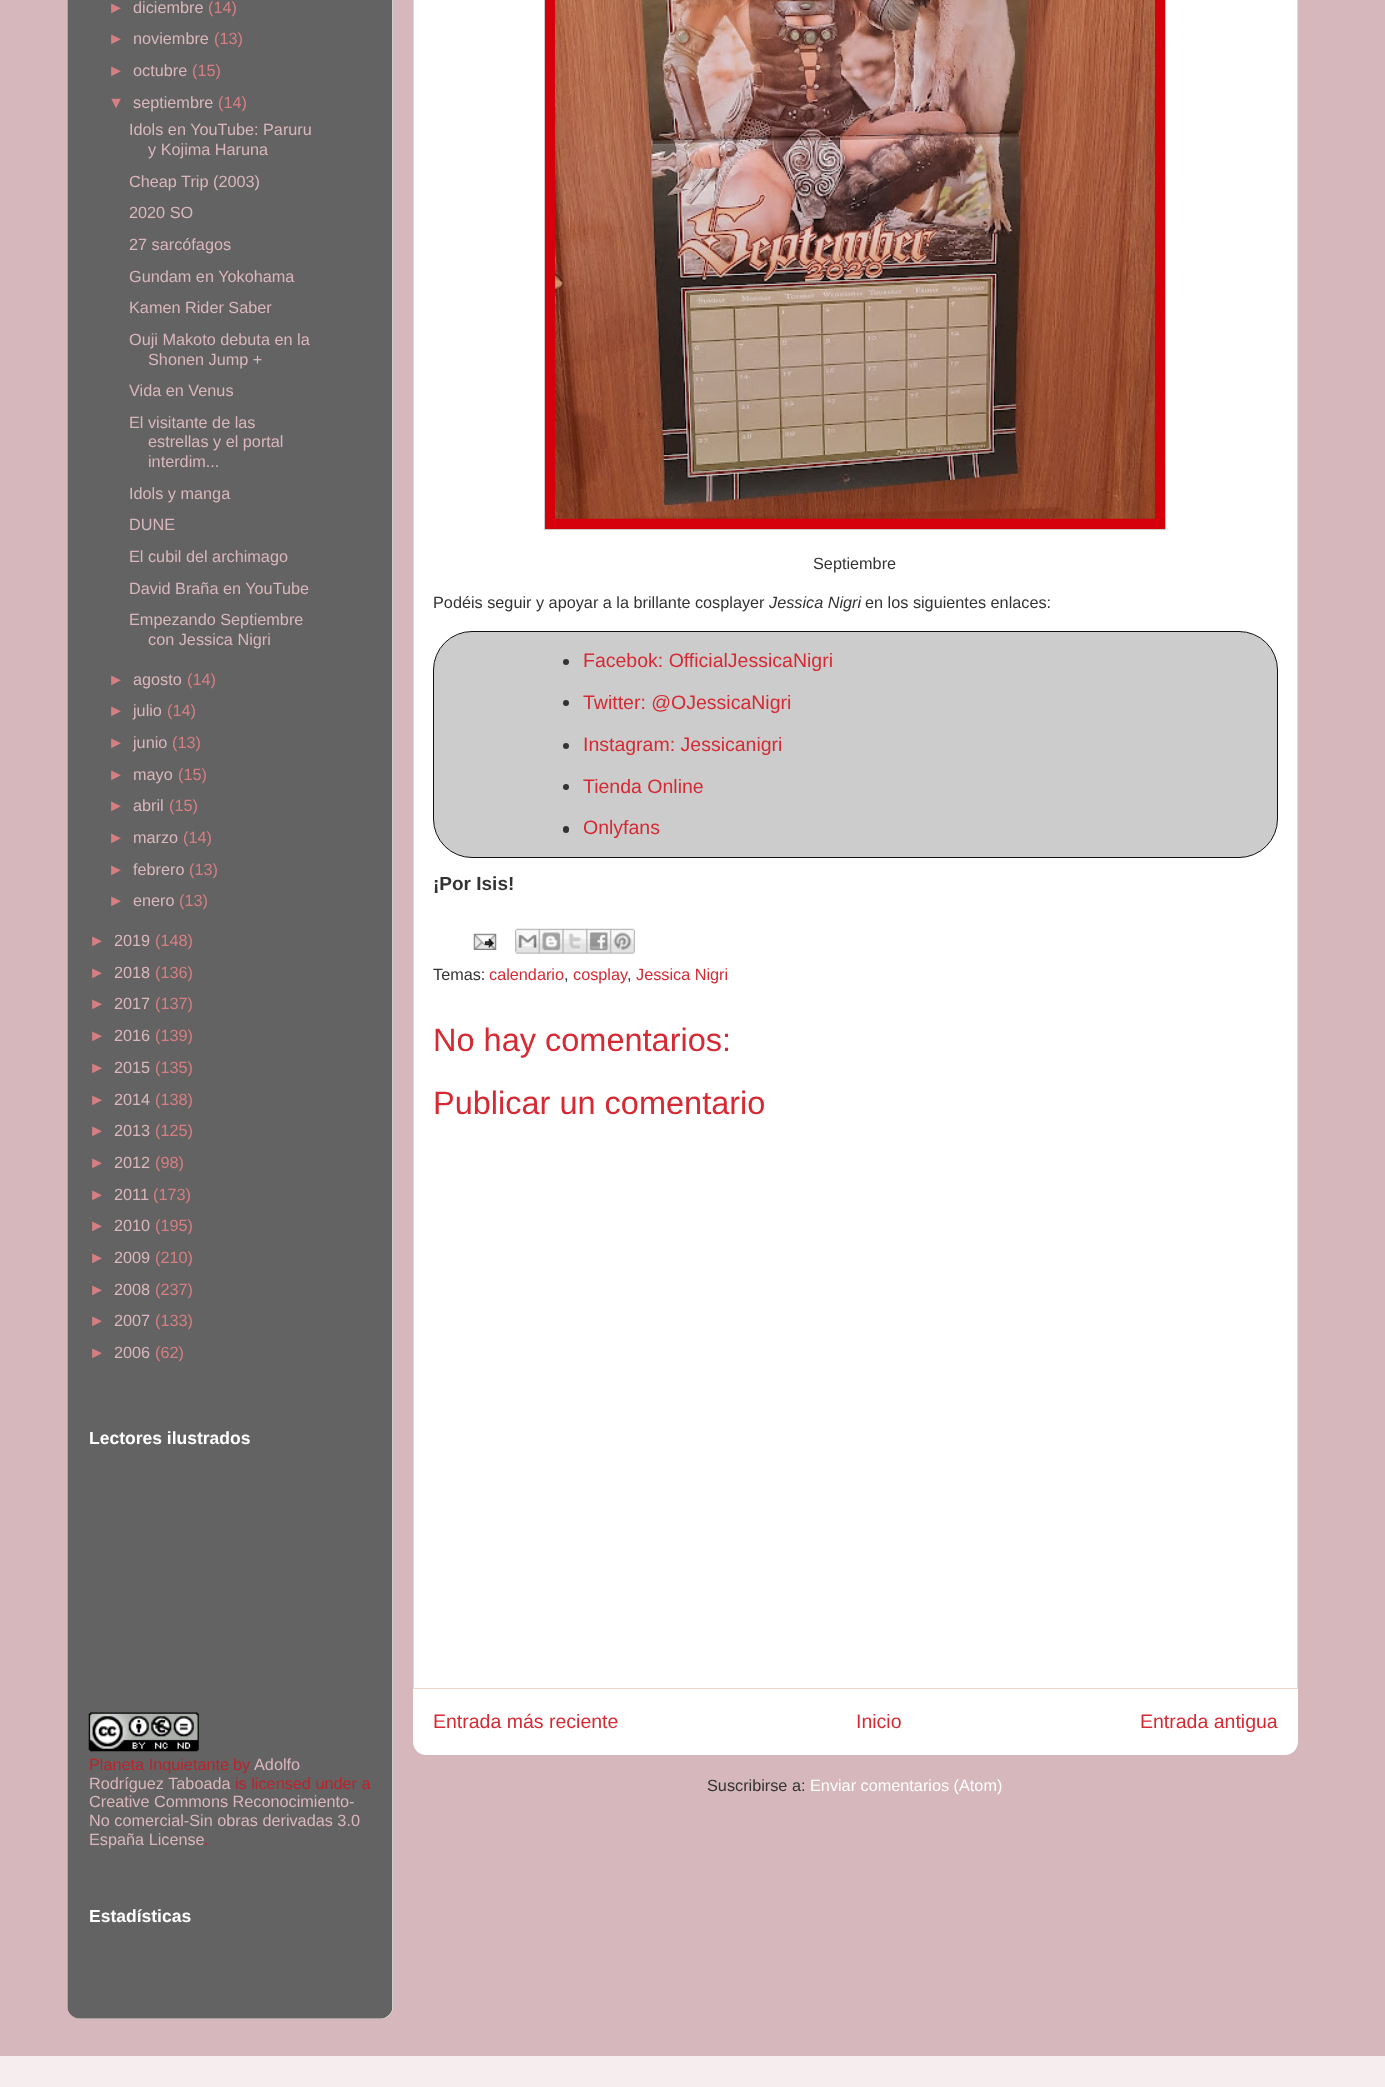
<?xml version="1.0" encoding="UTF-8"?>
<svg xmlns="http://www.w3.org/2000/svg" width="1385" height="2087">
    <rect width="100%" height="100%" fill="#D5B7BC"/>
    <rect x="68" y="-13" width="325" height="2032" rx="13" fill="#F3F3F3"/>
    <image x="67" y="0" width="326" height="2019" href="img_01.png"/>
    <text x="108" y="13" font-family="Liberation Sans" font-size="16.25" fill="#D57F83">►</text>
    <text x="133" y="13" font-family="Liberation Sans" font-size="16.25" fill="#DAB7BC">diciembre</text>
    <text x="208" y="13" font-family="Liberation Sans" font-size="16.25" fill="#D57F83">(14)</text>
    <text x="108" y="44" font-family="Liberation Sans" font-size="16.25" fill="#D57F83">►</text>
    <text x="133" y="44" font-family="Liberation Sans" font-size="16.25" fill="#DAB7BC">noviembre</text>
    <text x="214" y="44" font-family="Liberation Sans" font-size="16.25" fill="#D57F83">(13)</text>
    <text x="108" y="76" font-family="Liberation Sans" font-size="16.25" fill="#D57F83">►</text>
    <text x="133" y="76" font-family="Liberation Sans" font-size="16.25" fill="#DAB7BC">octubre</text>
    <text x="192" y="76" font-family="Liberation Sans" font-size="16.25" fill="#D57F83">(15)</text>
    <text x="108" y="108" font-family="Liberation Sans" font-size="16.25" fill="#D57F83">▼</text>
    <text x="133" y="108" font-family="Liberation Sans" font-size="16.25" fill="#DAB7BC">septiembre</text>
    <text x="218" y="108" font-family="Liberation Sans" font-size="16.25" fill="#D57F83">(14)</text>
    <text x="129" y="135" font-family="Liberation Sans" font-size="16.25" fill="#DAB7BC">Idols en YouTube: Paruru</text>
    <text x="148" y="155" font-family="Liberation Sans" font-size="16.25" fill="#DAB7BC">y Kojima Haruna</text>
    <text font-family="Liberation Sans" font-size="16.25" fill="#DAB7BC">
        <tspan x="129" y="187">Cheap Trip (2003)</tspan>
        <tspan x="129" y="218">2020 SO</tspan>
        <tspan x="129" y="250">27 sarcófagos</tspan>
        <tspan x="129" y="282">Gundam en Yokohama</tspan>
        <tspan x="129" y="313">Kamen Rider Saber</tspan>
        <tspan x="129" y="345">Ouji Makoto debuta en la</tspan>
    </text>
    <text x="148" y="365" font-family="Liberation Sans" font-size="16.25" fill="#DAB7BC">Shonen Jump +</text>
    <text font-family="Liberation Sans" font-size="16.25" fill="#DAB7BC">
        <tspan x="129" y="396">Vida en Venus</tspan>
        <tspan x="129" y="428">El visitante de las</tspan>
    </text>
    <text font-family="Liberation Sans" font-size="16.25" fill="#DAB7BC">
        <tspan x="148" y="447">estrellas y el portal</tspan>
        <tspan x="148" y="467">interdim...</tspan>
    </text>
    <text font-family="Liberation Sans" font-size="16.25" fill="#DAB7BC">
        <tspan x="129" y="499">Idols y manga</tspan>
        <tspan x="129" y="530">DUNE</tspan>
        <tspan x="129" y="562">El cubil del archimago</tspan>
        <tspan x="129" y="594">David Braña en YouTube</tspan>
        <tspan x="129" y="625">Empezando Septiembre</tspan>
    </text>
    <text x="148" y="645" font-family="Liberation Sans" font-size="16.25" fill="#DAB7BC">con Jessica Nigri</text>
    <text x="108" y="685" font-family="Liberation Sans" font-size="16.25" fill="#D57F83">►</text>
    <text x="133" y="685" font-family="Liberation Sans" font-size="16.25" fill="#DAB7BC">agosto</text>
    <text x="187" y="685" font-family="Liberation Sans" font-size="16.25" fill="#D57F83">(14)</text>
    <text x="108" y="716" font-family="Liberation Sans" font-size="16.25" fill="#D57F83">►</text>
    <text x="133" y="716" font-family="Liberation Sans" font-size="16.25" fill="#DAB7BC">julio</text>
    <text x="167" y="716" font-family="Liberation Sans" font-size="16.25" fill="#D57F83">(14)</text>
    <text x="108" y="748" font-family="Liberation Sans" font-size="16.25" fill="#D57F83">►</text>
    <text x="133" y="748" font-family="Liberation Sans" font-size="16.25" fill="#DAB7BC">junio</text>
    <text x="172" y="748" font-family="Liberation Sans" font-size="16.25" fill="#D57F83">(13)</text>
    <text x="108" y="780" font-family="Liberation Sans" font-size="16.25" fill="#D57F83">►</text>
    <text x="133" y="780" font-family="Liberation Sans" font-size="16.25" fill="#DAB7BC">mayo</text>
    <text x="178" y="780" font-family="Liberation Sans" font-size="16.25" fill="#D57F83">(15)</text>
    <text x="108" y="811" font-family="Liberation Sans" font-size="16.25" fill="#D57F83">►</text>
    <text x="133" y="811" font-family="Liberation Sans" font-size="16.25" fill="#DAB7BC">abril</text>
    <text x="169" y="811" font-family="Liberation Sans" font-size="16.25" fill="#D57F83">(15)</text>
    <text x="108" y="843" font-family="Liberation Sans" font-size="16.25" fill="#D57F83">►</text>
    <text x="133" y="843" font-family="Liberation Sans" font-size="16.25" fill="#DAB7BC">marzo</text>
    <text x="183" y="843" font-family="Liberation Sans" font-size="16.25" fill="#D57F83">(14)</text>
    <text x="108" y="875" font-family="Liberation Sans" font-size="16.25" fill="#D57F83">►</text>
    <text x="133" y="875" font-family="Liberation Sans" font-size="16.25" fill="#DAB7BC">febrero</text>
    <text x="189" y="875" font-family="Liberation Sans" font-size="16.25" fill="#D57F83">(13)</text>
    <text x="108" y="906" font-family="Liberation Sans" font-size="16.25" fill="#D57F83">►</text>
    <text x="133" y="906" font-family="Liberation Sans" font-size="16.25" fill="#DAB7BC">enero</text>
    <text x="179" y="906" font-family="Liberation Sans" font-size="16.25" fill="#D57F83">(13)</text>
    <text x="89" y="946" font-family="Liberation Sans" font-size="16.25" fill="#D57F83">►</text>
    <text x="114" y="946" font-family="Liberation Sans" font-size="16.25" fill="#DAB7BC">2019</text>
    <text x="155" y="946" font-family="Liberation Sans" font-size="16.25" fill="#D57F83">(148)</text>
    <text x="89" y="978" font-family="Liberation Sans" font-size="16.25" fill="#D57F83">►</text>
    <text x="114" y="978" font-family="Liberation Sans" font-size="16.25" fill="#DAB7BC">2018</text>
    <text x="155" y="978" font-family="Liberation Sans" font-size="16.25" fill="#D57F83">(136)</text>
    <text x="89" y="1009" font-family="Liberation Sans" font-size="16.25" fill="#D57F83">►</text>
    <text x="114" y="1009" font-family="Liberation Sans" font-size="16.25" fill="#DAB7BC">2017</text>
    <text x="155" y="1009" font-family="Liberation Sans" font-size="16.25" fill="#D57F83">(137)</text>
    <text x="89" y="1041" font-family="Liberation Sans" font-size="16.25" fill="#D57F83">►</text>
    <text x="114" y="1041" font-family="Liberation Sans" font-size="16.25" fill="#DAB7BC">2016</text>
    <text x="155" y="1041" font-family="Liberation Sans" font-size="16.25" fill="#D57F83">(139)</text>
    <text x="89" y="1073" font-family="Liberation Sans" font-size="16.25" fill="#D57F83">►</text>
    <text x="114" y="1073" font-family="Liberation Sans" font-size="16.25" fill="#DAB7BC">2015</text>
    <text x="155" y="1073" font-family="Liberation Sans" font-size="16.25" fill="#D57F83">(135)</text>
    <text x="89" y="1105" font-family="Liberation Sans" font-size="16.25" fill="#D57F83">►</text>
    <text x="114" y="1105" font-family="Liberation Sans" font-size="16.25" fill="#DAB7BC">2014</text>
    <text x="155" y="1105" font-family="Liberation Sans" font-size="16.25" fill="#D57F83">(138)</text>
    <text x="89" y="1136" font-family="Liberation Sans" font-size="16.25" fill="#D57F83">►</text>
    <text x="114" y="1136" font-family="Liberation Sans" font-size="16.25" fill="#DAB7BC">2013</text>
    <text x="155" y="1136" font-family="Liberation Sans" font-size="16.25" fill="#D57F83">(125)</text>
    <text x="89" y="1168" font-family="Liberation Sans" font-size="16.25" fill="#D57F83">►</text>
    <text x="114" y="1168" font-family="Liberation Sans" font-size="16.25" fill="#DAB7BC">2012</text>
    <text x="155" y="1168" font-family="Liberation Sans" font-size="16.25" fill="#D57F83">(98)</text>
    <text x="89" y="1200" font-family="Liberation Sans" font-size="16.25" fill="#D57F83">►</text>
    <text x="114" y="1200" font-family="Liberation Sans" font-size="16.25" fill="#DAB7BC">2011</text>
    <text x="153" y="1200" font-family="Liberation Sans" font-size="16.25" fill="#D57F83">(173)</text>
    <text x="89" y="1231" font-family="Liberation Sans" font-size="16.25" fill="#D57F83">►</text>
    <text x="114" y="1231" font-family="Liberation Sans" font-size="16.25" fill="#DAB7BC">2010</text>
    <text x="155" y="1231" font-family="Liberation Sans" font-size="16.25" fill="#D57F83">(195)</text>
    <text x="89" y="1263" font-family="Liberation Sans" font-size="16.25" fill="#D57F83">►</text>
    <text x="114" y="1263" font-family="Liberation Sans" font-size="16.25" fill="#DAB7BC">2009</text>
    <text x="155" y="1263" font-family="Liberation Sans" font-size="16.25" fill="#D57F83">(210)</text>
    <text x="89" y="1295" font-family="Liberation Sans" font-size="16.25" fill="#D57F83">►</text>
    <text x="114" y="1295" font-family="Liberation Sans" font-size="16.25" fill="#DAB7BC">2008</text>
    <text x="155" y="1295" font-family="Liberation Sans" font-size="16.25" fill="#D57F83">(237)</text>
    <text x="89" y="1326" font-family="Liberation Sans" font-size="16.25" fill="#D57F83">►</text>
    <text x="114" y="1326" font-family="Liberation Sans" font-size="16.25" fill="#DAB7BC">2007</text>
    <text x="155" y="1326" font-family="Liberation Sans" font-size="16.25" fill="#D57F83">(133)</text>
    <text x="89" y="1358" font-family="Liberation Sans" font-size="16.25" fill="#D57F83">►</text>
    <text x="114" y="1358" font-family="Liberation Sans" font-size="16.25" fill="#DAB7BC">2006</text>
    <text x="155" y="1358" font-family="Liberation Sans" font-size="16.25" fill="#D57F83">(62)</text>
    <text x="89" y="1444" font-family="Liberation Sans" font-size="17.5" font-weight="700" fill="#FFFFFF">Lectores ilustrados</text>
    <image x="88" y="1712" width="111" height="40" href="img_02.png"/>
    <text x="89" y="1770" font-family="Liberation Sans" font-size="16.25" fill="#BB232D">Planeta Inquietante</text>
    <text x="233" y="1770" font-family="Liberation Sans" font-size="16.25" fill="#BB232D">by</text>
    <text x="254" y="1770" font-family="Liberation Sans" font-size="16.25" fill="#DAB7BC">Adolfo</text>
    <text x="89" y="1789" font-family="Liberation Sans" font-size="16.25" fill="#DAB7BC">Rodríguez Taboada</text>
    <text x="235" y="1789" font-family="Liberation Sans" font-size="16.25" fill="#BB232D">is licensed under a</text>
    <text font-family="Liberation Sans" font-size="16.25" fill="#DAB7BC">
        <tspan x="89" y="1807">Creative Commons Reconocimiento-</tspan>
        <tspan x="89" y="1826">No comercial-Sin obras derivadas 3.0</tspan>
        <tspan x="89" y="1845">España License</tspan>
    </text>
    <text x="204" y="1845" font-family="Liberation Sans" font-size="16.25" fill="#BB232D">.</text>
    <text x="89" y="1922" font-family="Liberation Sans" font-size="17.5" font-weight="700" fill="#FFFFFF">Estadísticas</text>
    <rect x="413.5" y="-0.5" width="884" height="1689" fill="#FFFFFF" stroke="#F4D3CC"/>
    <rect x="544.5" y="-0.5" width="621" height="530" fill="#D5000B" stroke="#CCCCCC"/>
    <image x="555" y="0" width="600" height="519" href="img_03.png"/>
    <text x="813" y="569" font-family="Liberation Sans" font-size="16.25" fill="#333333">Septiembre</text>
    <text x="433" y="608" font-family="Liberation Sans" font-size="16.25" fill="#333333">Podéis seguir y apoyar a la brillante cosplayer</text>
    <text x="769" y="608" font-family="Liberation Sans" font-size="16.25" font-style="italic" fill="#333333">Jessica Nigri</text>
    <text x="865" y="608" font-family="Liberation Sans" font-size="16.25" fill="#333333">en los siguientes enlaces:</text>
    <rect x="433.5" y="631.5" width="844" height="226" rx="38.5" fill="#CCCCCC" stroke="#111111"/>
    <circle cx="566" cy="662" r="3" fill="#333333"/>
    <text x="583" y="667" font-family="Liberation Sans" font-size="19.5" fill="#D52A33">Facebok: OfficialJessicaNigri</text>
    <circle cx="566" cy="703" r="3" fill="#333333"/>
    <text x="583" y="709" font-family="Liberation Sans" font-size="19.5" fill="#D52A33">Twitter: @OJessicaNigri</text>
    <circle cx="566" cy="746" r="3" fill="#333333"/>
    <text x="583" y="751" font-family="Liberation Sans" font-size="19.5" fill="#D52A33">Instagram: Jessicanigri</text>
    <circle cx="566" cy="787" r="3" fill="#333333"/>
    <text x="583" y="793" font-family="Liberation Sans" font-size="19.5" fill="#D52A33">Tienda Online</text>
    <rect x="563" y="826" width="6" height="7" rx="3" fill="#333333"/>
    <text x="583" y="834" font-family="Liberation Sans" font-size="19.5" fill="#D52A33">Onlyfans</text>
    <text x="433" y="890" font-family="Liberation Sans" font-size="19" font-weight="700" fill="#333333">¡Por Isis!</text>
    <image x="473" y="933" width="24" height="17" href="img_04.png"/>
    <image x="515" y="928" width="25" height="26" href="img_05.png"/>
    <image x="538" y="928" width="26" height="26" href="img_06.png"/>
    <image x="562" y="928" width="26" height="26" href="img_07.png"/>
    <image x="586" y="928" width="26" height="26" href="img_08.png"/>
    <image x="610" y="928" width="25" height="26" href="img_09.png"/>
    <text x="433" y="980" font-family="Liberation Sans" font-size="16.25" fill="#333333">Temas:</text>
    <text x="489" y="980" font-family="Liberation Sans" font-size="16.25" fill="#D52A33">calendario</text>
    <text x="564" y="980" font-family="Liberation Sans" font-size="16.25" fill="#333333">,</text>
    <text x="573" y="980" font-family="Liberation Sans" font-size="16.25" fill="#D52A33">cosplay</text>
    <text x="627" y="980" font-family="Liberation Sans" font-size="16.25" fill="#333333">,</text>
    <text x="636" y="980" font-family="Liberation Sans" font-size="16.25" fill="#D52A33">Jessica Nigri</text>
    <text font-family="Liberation Sans" font-size="32.5" fill="#D52A33">
        <tspan x="433" y="1051">No hay comentarios:</tspan>
        <tspan x="433" y="1114">Publicar un comentario</tspan>
    </text>
    <path d="M 413 1689 H 1298 V 1742 C 1298 1749 1292 1755 1285 1755 H 426 C 419 1755 413 1749 413 1742 Z" fill="#FFFFFF"/>
    <text x="433" y="1728" font-family="Liberation Sans" font-size="19.5" fill="#D52A33">Entrada más reciente</text>
    <text x="856" y="1728" font-family="Liberation Sans" font-size="19.5" fill="#D52A33">Inicio</text>
    <text x="1140" y="1728" font-family="Liberation Sans" font-size="19.5" fill="#D52A33">Entrada antigua</text>
    <text x="707" y="1791" font-family="Liberation Sans" font-size="16.25" fill="#333333">Suscribirse a:</text>
    <text x="810" y="1791" font-family="Liberation Sans" font-size="16.25" fill="#FFFFFF">Enviar comentarios (Atom)</text>
    <rect x="0" y="2056" width="1385" height="31" fill="#F5EDEE"/>
</svg>
